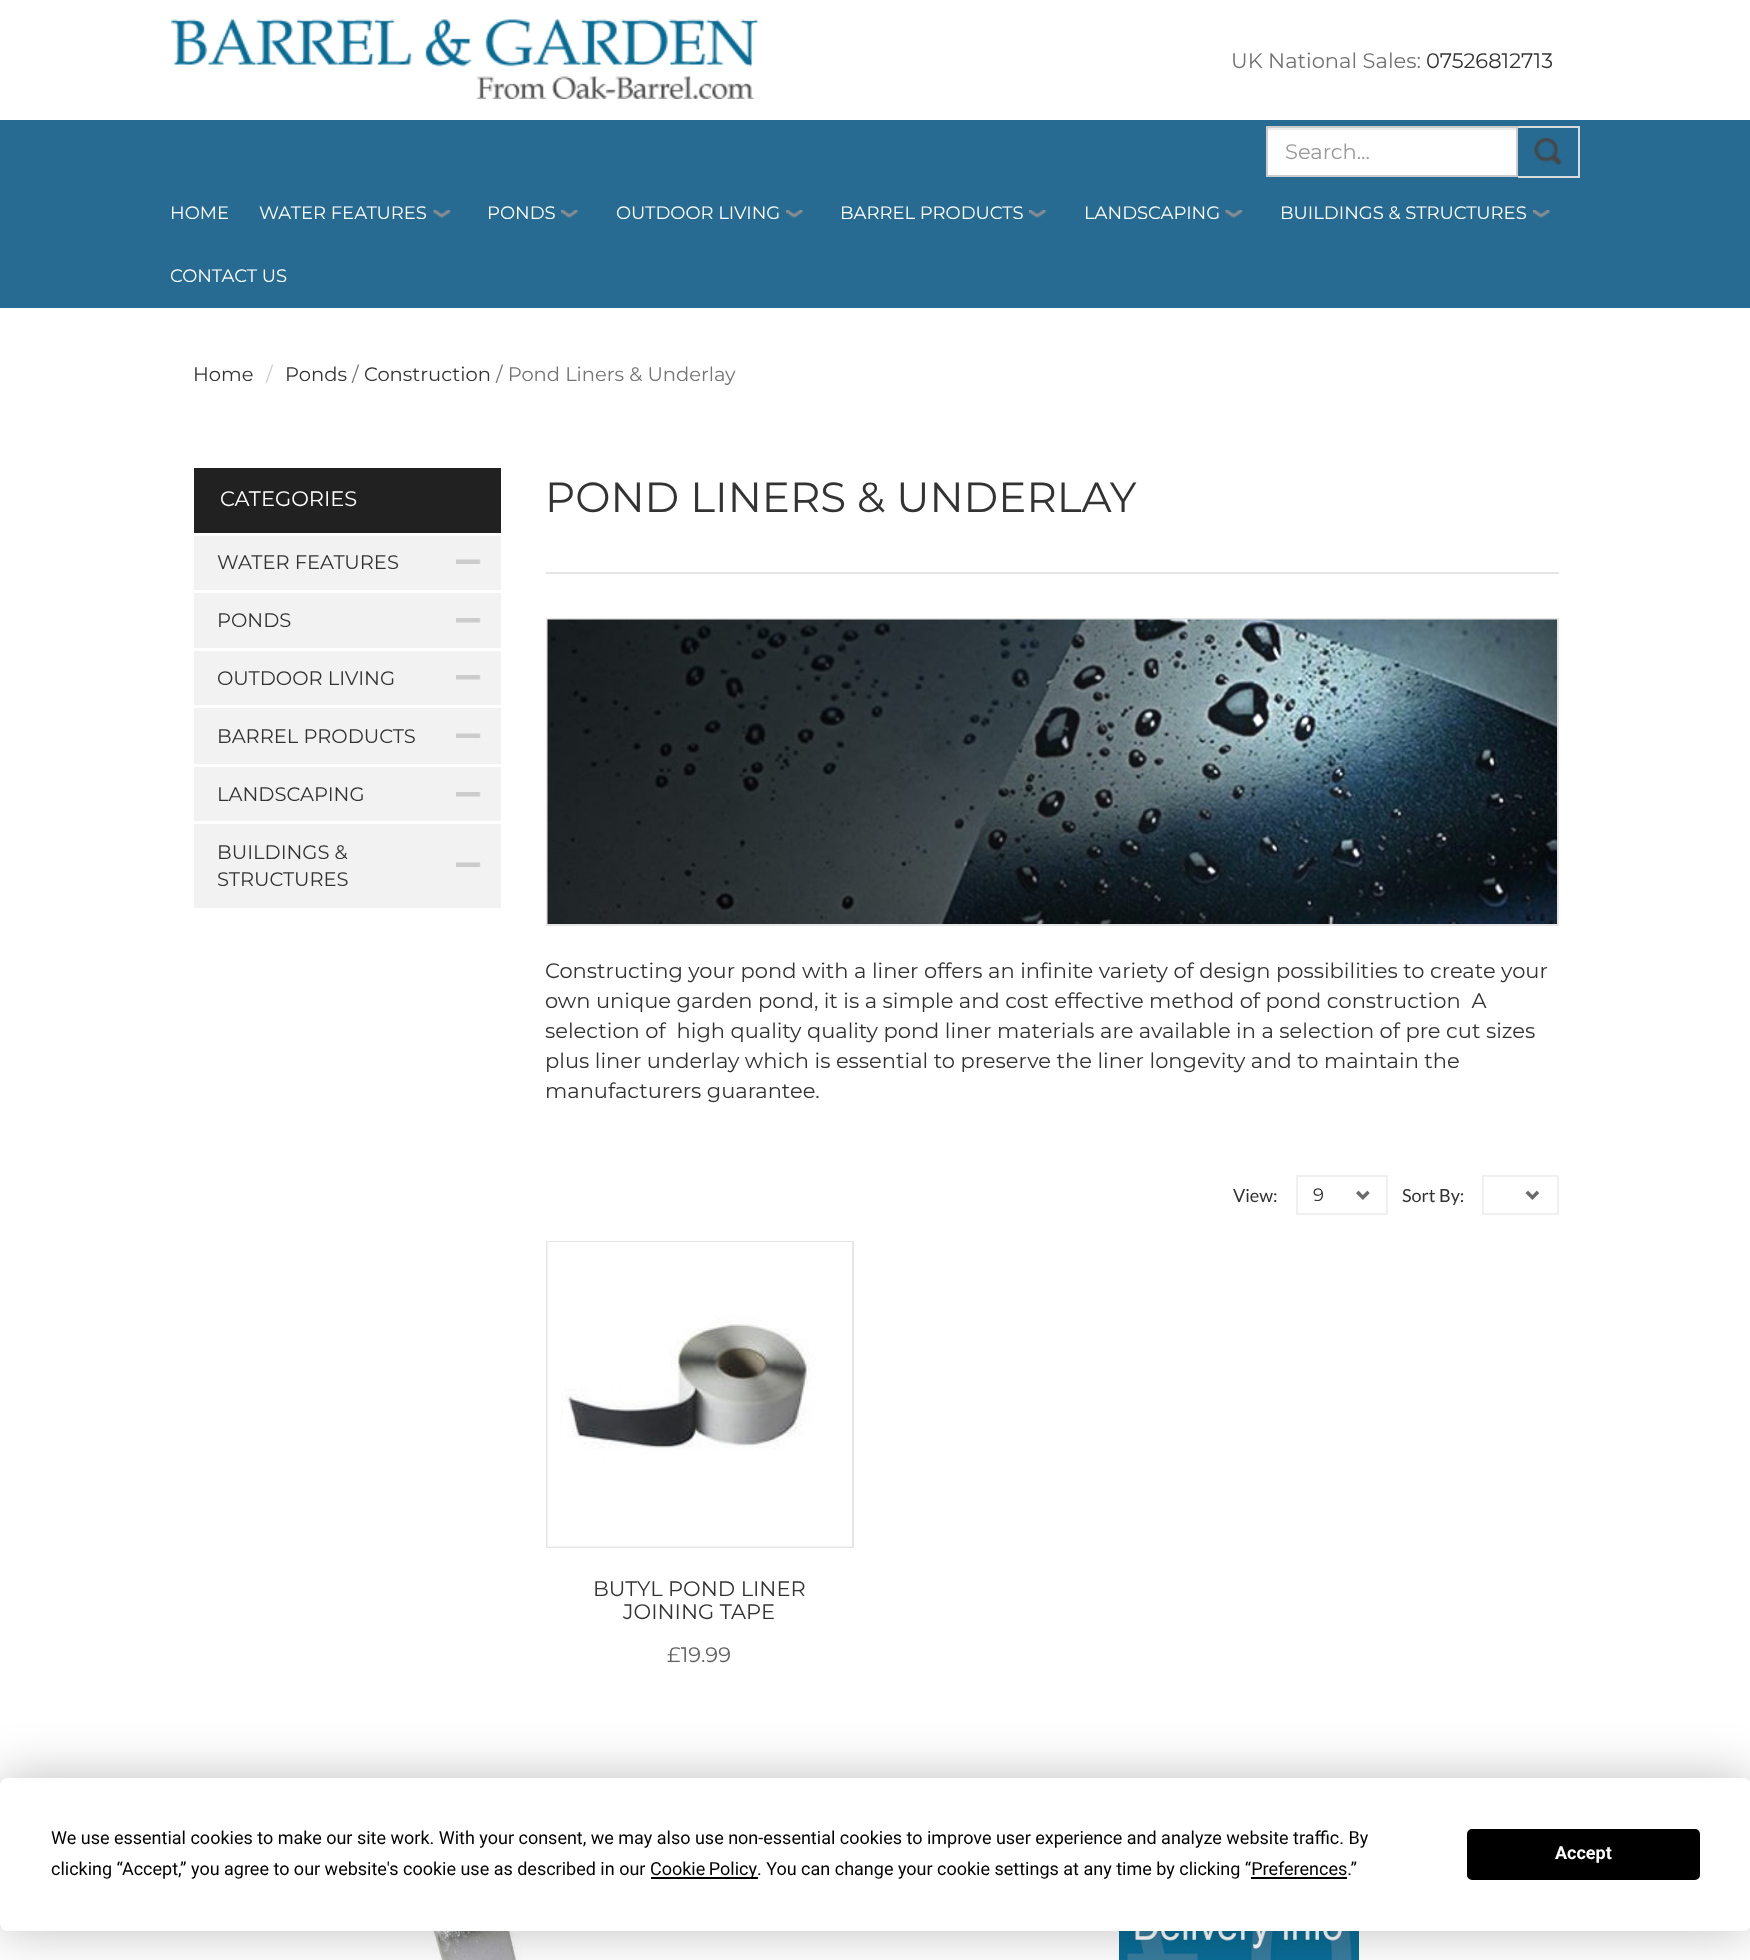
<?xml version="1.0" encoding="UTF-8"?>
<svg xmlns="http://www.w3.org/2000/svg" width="1750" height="1960">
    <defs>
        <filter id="blur1" x="-50%" y="-200%" width="200%" height="500%"><feGaussianBlur stdDeviation="26"/></filter>
    </defs>
    <rect width="100%" height="100%" fill="#FFFFFF"/>
    <image x="171" y="19" width="587" height="80" href="img_01.png"/>
    <text x="1231" y="68" font-family="Montserrat" font-size="21" fill="#747474">UK National Sales:</text>
    <text x="1426" y="68" font-family="Montserrat" font-size="21" fill="#333333">07526812713</text>
    <rect x="0" y="120" width="1750" height="188" fill="#276B93"/>
    <rect x="1266" y="126" width="252" height="51" rx="1.5" fill="#FFFFFF"/>
    <rect x="1268" y="128" width="249" height="2" fill="#ECECEC"/>
    <rect x="1267" y="127" width="250" height="49" rx="0.5" fill="none" stroke="#CCCCCC" stroke-width="2"/>
    <text x="1285" y="159" font-family="Montserrat" font-size="21" fill="#999999">Search...</text>
    <image x="1534" y="138" width="28" height="27" href="img_02.png"/>
    <rect x="1518" y="126" width="62" height="2" fill="#DBDCDD"/>
    <rect x="1578" y="126" width="2" height="51" fill="#DBDCDD"/>
    <rect x="1518" y="176" width="62" height="2" fill="#DBDCDD"/>
    <text x="170" y="219" font-family="Montserrat" font-size="18" fill="#FFFFFF">HOME</text>
    <image x="433" y="210" width="18" height="8" href="img_03.png"/>
    <text x="259" y="219" font-family="Montserrat" font-size="18" fill="#FFFFFF">WATER FEATURES</text>
    <image x="561" y="210" width="17" height="8" href="img_04.png"/>
    <text x="487" y="219" font-family="Montserrat" font-size="18" fill="#FFFFFF">PONDS</text>
    <image x="786" y="210" width="17" height="8" href="img_05.png"/>
    <text x="616" y="219" font-family="Montserrat" font-size="18" fill="#FFFFFF">OUTDOOR LIVING</text>
    <image x="1029" y="210" width="17" height="8" href="img_06.png"/>
    <text x="840" y="219" font-family="Montserrat" font-size="18" fill="#FFFFFF">BARREL PRODUCTS</text>
    <image x="1225" y="210" width="18" height="8" href="img_07.png"/>
    <text x="1084" y="219" font-family="Montserrat" font-size="18" fill="#FFFFFF">LANDSCAPING</text>
    <image x="1533" y="210" width="17" height="8" href="img_05.png"/>
    <text x="1280" y="219" font-family="Montserrat" font-size="18" fill="#FFFFFF">BUILDINGS &amp; STRUCTURES</text>
    <text x="170" y="282" font-family="Montserrat" font-size="18" fill="#FFFFFF">CONTACT US</text>
    <text x="193" y="381" font-family="Montserrat" font-size="19.5" fill="#333333">Home</text>
    <text x="266" y="381" font-family="Montserrat" font-size="19.5" fill="#CCCCCC">/</text>
    <text x="285" y="381" font-family="Montserrat" font-size="19.5" fill="#333333">Ponds</text>
    <text x="352" y="381" font-family="Montserrat" font-size="19.5" fill="#747474">/</text>
    <text x="364" y="381" font-family="Montserrat" font-size="19.5" fill="#333333">Construction</text>
    <text x="496" y="381" font-family="Montserrat" font-size="19.5" fill="#747474">/ Pond Liners &amp; Underlay</text>
    <rect x="194" y="468" width="307" height="65" fill="#222121"/>
    <text x="220" y="506" font-family="Montserrat" font-size="21" fill="#FFFFFF">CATEGORIES</text>
    <rect x="194" y="536" width="307" height="54" fill="#F2F2F2"/>
    <image x="456" y="559" width="25" height="5" href="img_08.png"/>
    <text x="217" y="569" font-family="Montserrat" font-size="19.5" fill="#333333">WATER FEATURES</text>
    <rect x="194" y="593" width="307" height="55" fill="#F2F2F2"/>
    <image x="456" y="618" width="25" height="5" href="img_09.png"/>
    <text x="217" y="627" font-family="Montserrat" font-size="19.5" fill="#333333">PONDS</text>
    <rect x="194" y="651" width="307" height="54" fill="#F2F2F2"/>
    <image x="456" y="675" width="25" height="5" href="img_09.png"/>
    <text x="217" y="685" font-family="Montserrat" font-size="19.5" fill="#333333">OUTDOOR LIVING</text>
    <rect x="194" y="708" width="307" height="56" fill="#F2F2F2"/>
    <image x="456" y="733" width="25" height="5" href="img_08.png"/>
    <text x="217" y="743" font-family="Montserrat" font-size="19.5" fill="#333333">BARREL PRODUCTS</text>
    <rect x="194" y="767" width="307" height="54" fill="#F2F2F2"/>
    <image x="456" y="792" width="25" height="5" href="img_09.png"/>
    <text x="217" y="801" font-family="Montserrat" font-size="19.5" fill="#333333">LANDSCAPING</text>
    <rect x="194" y="824" width="307" height="84" fill="#F2F2F2"/>
    <image x="456" y="862" width="25" height="5" href="img_08.png"/>
    <text font-family="Montserrat" font-size="19.5" fill="#333333">
        <tspan x="217" y="859">BUILDINGS &amp;</tspan>
        <tspan x="217" y="886">STRUCTURES</tspan>
    </text>
    <rect x="546" y="572" width="1013" height="2" fill="#E6E6E6"/>
    <text x="545" y="512" font-family="Montserrat" font-size="42" fill="#333333">POND LINERS &amp; UNDERLAY</text>
    <rect x="547" y="619" width="1011" height="306" fill="none" stroke="#E6E6E6" stroke-width="2"/>
    <image x="547" y="619" width="1010" height="305" href="img_10.png"/>
    <text font-family="Montserrat" font-size="21" fill="#333333" xml:space="preserve"><tspan x="545" y="978">Constructing your pond with a liner offers an infinite variety of design possibilities to create your</tspan><tspan x="545" y="1008">own unique garden pond, it is a simple and cost effective method of pond construction  A</tspan><tspan x="545" y="1038">selection of  high quality quality pond liner materials are available in a selection of pre cut sizes</tspan><tspan x="545" y="1068">plus liner underlay which is essential to preserve the liner longevity and to maintain the</tspan><tspan x="545" y="1098">manufacturers guarantee.</tspan></text>
    <text x="1233" y="1202" font-family="Lato" font-size="18" fill="#333333">View:</text>
    <rect x="1297" y="1176" width="90" height="38" fill="none" stroke="#F0F0F0" stroke-width="2"/>
    <text x="1313" y="1201" font-family="Montserrat" font-size="18" fill="#333333">9</text>
    <image x="1356" y="1190" width="14" height="10" href="img_11.png"/>
    <text x="1402" y="1202" font-family="Lato" font-size="18" fill="#333333">Sort By:</text>
    <rect x="1483" y="1176" width="75" height="38" fill="none" stroke="#F0F0F0" stroke-width="2"/>
    <image x="1525" y="1190" width="15" height="10" href="img_12.png"/>
    <rect x="547" y="1242" width="306" height="305" fill="none" stroke="#E6E6E6" stroke-width="2"/>
    <image x="547" y="1242" width="305" height="305" href="img_13.png"/>
    <text x="593" y="1596" font-family="Montserrat" font-size="21" fill="#333333">BUTYL POND LINER</text>
    <text x="623" y="1619" font-family="Montserrat" font-size="21" fill="#333333">JOINING TAPE</text>
    <text x="667" y="1662" font-family="Montserrat" font-size="21" fill="#626161">£19.99</text>
    <image x="399" y="1931" width="218" height="29" href="img_14.png"/>
    <image x="1119" y="1931" width="240" height="29" href="img_15.png"/>
    <rect x="0" y="1778" width="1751" height="153" rx="8" fill="#000000" fill-opacity="0.25" filter="url(#blur1)"/>
    <rect x="0" y="1778" width="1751" height="153" rx="8" fill="#FFFFFF"/>
    <text font-family="Roboto" font-size="18" fill="#000000">
        <tspan x="51" y="1844">We use essential cookies to make our site work. With your consent, we may also use non-essential cookies to improve user experience and analyze website traffic. By</tspan>
        <tspan x="51" y="1875">clicking “Accept,” you agree to our website's cookie use as described in our</tspan>
    </text>
    <rect x="651" y="1877" width="107" height="2" fill="#000000"/>
    <text x="650" y="1875" word-spacing="-1" font-family="Roboto" font-size="18" fill="#000000">Cookie Policy</text>
    <text x="757" y="1875" font-family="Roboto" font-size="18" fill="#000000">. You can change your cookie settings at any time by clicking “Preferences.”</text>
    <rect x="1251" y="1877" width="96" height="2" fill="#000000"/>
    <rect x="1468" y="1830" width="231" height="49" rx="4" fill="#000000" stroke="#000000" stroke-width="2"/>
    <text x="1555" y="1859" font-family="Roboto" font-size="18" font-weight="700" fill="#FFFFFF">Accept</text>
</svg>
